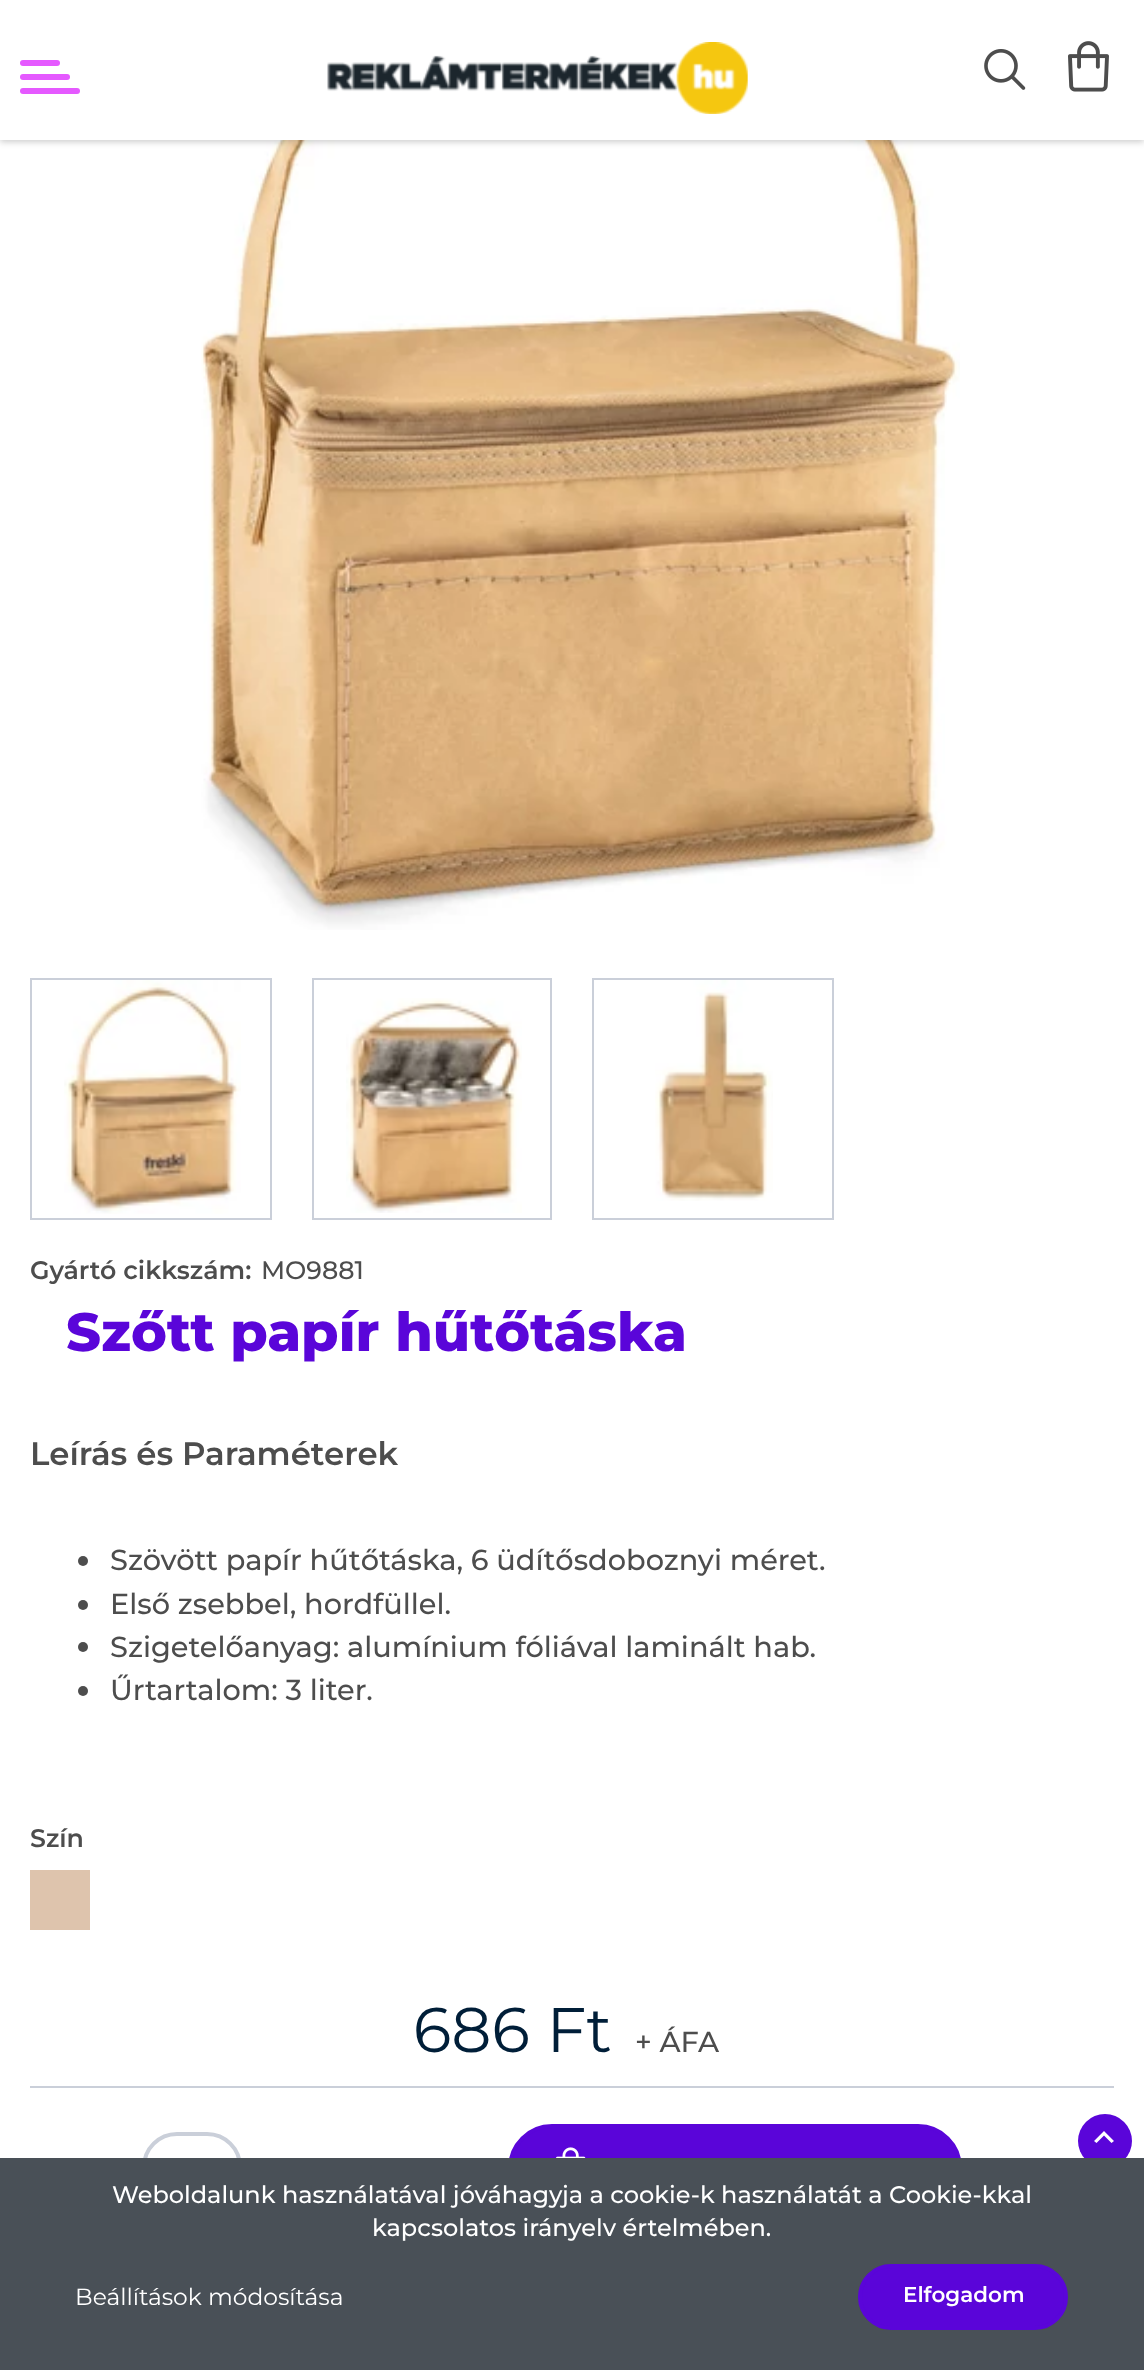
<?xml version="1.0" encoding="UTF-8"?>
<svg xmlns="http://www.w3.org/2000/svg" width="1144" height="2370">
    <defs>
        <filter id="blur1" x="-50%" y="-200%" width="200%" height="500%"><feGaussianBlur stdDeviation="3"/></filter>
    </defs>
    <rect width="100%" height="100%" fill="#FFFFFF"/>
    <image x="201" y="140" width="759" height="790" href="img_04.png"/>
    <rect x="0" y="2" width="1144" height="140" fill="#000000" fill-opacity="0.2" filter="url(#blur1)"/>
    <rect x="0" y="0" width="1144" height="140" fill="#FFFFFF"/>
    <rect x="20" y="88" width="60" height="6" rx="3" fill="#E559FF"/>
    <rect x="20" y="60" width="40" height="6" rx="3" fill="#E559FF"/>
    <rect x="20" y="74" width="50" height="6" rx="3" fill="#E559FF"/>
    <image x="327" y="42" width="421" height="72" href="img_01.png"/>
    <image x="984" y="49" width="42" height="41" href="img_02.png"/>
    <image x="1068" y="41" width="41" height="51" href="img_03.png"/>
    <rect x="31" y="979" width="240" height="240" fill="none" stroke="#CACFD9" stroke-width="2"/>
    <image x="64" y="980" width="177" height="234" href="img_05.png"/>
    <rect x="313" y="979" width="238" height="240" fill="none" stroke="#CACFD9" stroke-width="2"/>
    <image x="346" y="998" width="176" height="215" href="img_06.png"/>
    <rect x="593" y="979" width="240" height="240" fill="none" stroke="#CACFD9" stroke-width="2"/>
    <image x="655" y="980" width="118" height="221" href="img_07.png"/>
    <text x="30" y="1279" font-family="Montserrat" font-size="25.25" font-weight="600" fill="#4D4D4D">Gyártó cikkszám:</text>
    <text x="261" y="1279" font-family="Montserrat" font-size="25.25" font-weight="500" fill="#4D4D4D">MO9881</text>
    <text x="66" y="1351" font-family="Montserrat" font-size="54" font-weight="800" fill="#5A05D9">Szőtt papír hűtőtáska</text>
    <text x="30" y="1465" font-family="Montserrat" font-size="32.4" font-weight="600" fill="#4D4D4D">Leírás és Paraméterek</text>
    <circle cx="83" cy="1561" r="5" fill="#4D4D4D"/>
    <text x="110" y="1570" font-family="Montserrat" font-size="28.8" font-weight="500" fill="#4D4D4D">Szövött papír hűtőtáska, 6 üdítősdoboznyi méret.</text>
    <circle cx="83" cy="1605" r="5" fill="#4D4D4D"/>
    <text x="110" y="1614" font-family="Montserrat" font-size="28.8" font-weight="500" fill="#4D4D4D">Első zsebbel, hordfüllel.</text>
    <circle cx="83" cy="1647" r="5" fill="#4D4D4D"/>
    <text x="110" y="1657" font-family="Montserrat" font-size="28.8" font-weight="500" fill="#4D4D4D">Szigetelőanyag: alumínium fóliával laminált hab.</text>
    <circle cx="83" cy="1691" r="5" fill="#4D4D4D"/>
    <text x="110" y="1700" font-family="Montserrat" font-size="28.8" font-weight="500" fill="#4D4D4D">Űrtartalom: 3 liter.</text>
    <text x="30" y="1847" font-family="Montserrat" font-size="25.25" font-weight="600" fill="#4D4D4D">Szín</text>
    <rect x="30" y="1870" width="60" height="60" fill="#DEC4AD"/>
    <text x="413" y="2052" font-family="Montserrat" font-size="63" fill="#001E38">686 Ft</text>
    <text x="635" y="2052" font-family="Montserrat" font-size="28.8" font-weight="500" fill="#4D4D4D">+ ÁFA</text>
    <rect x="30" y="2086" width="1084" height="2" fill="#CACFD9"/>
    <rect x="144" y="2134" width="96" height="66" rx="33" fill="none" stroke="#CACFD9" stroke-width="4"/>
    <rect x="510" y="2126" width="450" height="84" rx="42" fill="#5A05D9" stroke="#5A05D9" stroke-width="4"/>
    <image x="556" y="2147" width="30" height="11" href="img_08.png"/>
    <circle cx="1105" cy="2141" r="27" fill="#5A05D9"/>
    <path d="M 1094 2141 L 1096.5 2143 L 1104 2135.5 L 1111.5 2143 L 1114 2141 L 1104 2131 Z" fill="#FFFFFF"/>
    <rect x="0" y="2158" width="1144" height="212" fill="#495057"/>
    <text x="112" y="2203" font-family="Montserrat" font-size="24" font-weight="500" fill="#FFFFFF">Weboldalunk használatával jóváhagyja a cookie-k használatát a Cookie-kkal</text>
    <text x="372" y="2236" font-family="Montserrat" font-size="24" font-weight="500" fill="#FFFFFF">kapcsolatos irányelv értelmében.</text>
    <text x="75" y="2305" font-family="Montserrat" font-size="23.4" fill="#FFFFFF">Beállítások módosítása</text>
    <rect x="860" y="2266" width="206" height="62" rx="31" fill="#5A05D9" stroke="#5A05D9" stroke-width="4"/>
    <text x="903" y="2302" font-family="Montserrat" font-size="21.5" font-weight="600" fill="#FFFFFF">Elfogadom</text>
</svg>
